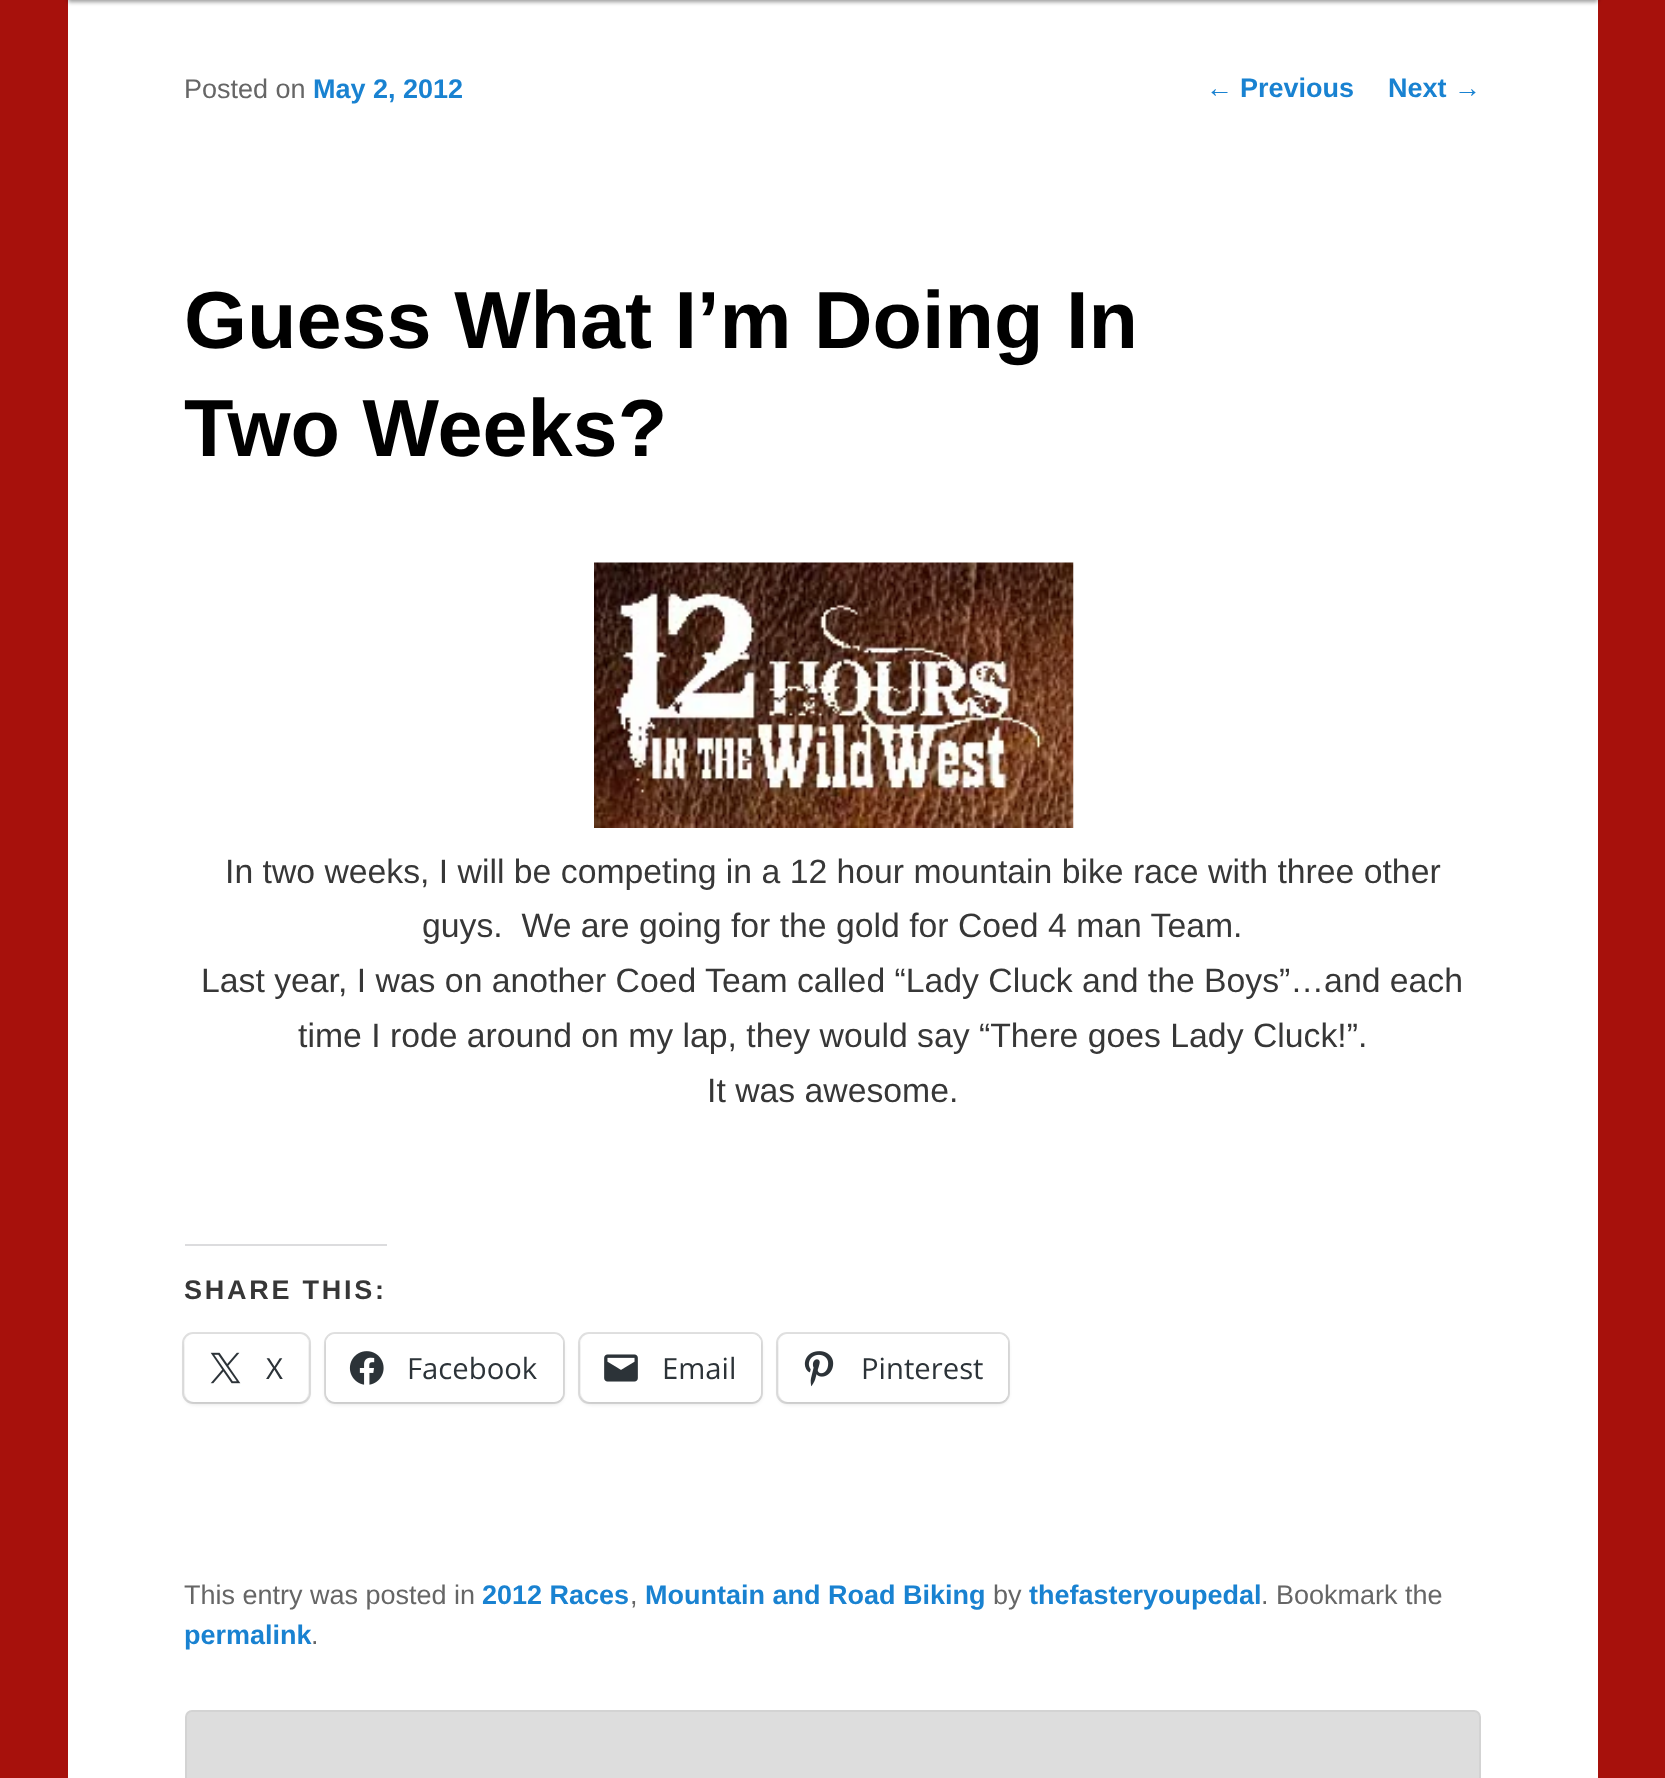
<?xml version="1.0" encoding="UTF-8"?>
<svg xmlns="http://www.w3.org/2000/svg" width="1665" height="1778">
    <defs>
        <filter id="blur1" x="-50%" y="-200%" width="200%" height="500%"><feGaussianBlur stdDeviation="2"/></filter>
    </defs>
    <rect width="100%" height="100%" fill="#A7110C"/>
    <rect x="68" y="0" width="1530" height="1778" fill="#FFFFFF"/>
    <rect x="68" y="-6" width="1530" height="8" fill="#000000" fill-opacity="0.4" filter="url(#blur1)"/>
    <text x="1206" y="97" font-family="Liberation Sans" font-size="27" fill="#1982D1">←</text>
    <text x="1240" y="97" font-family="Liberation Sans" font-size="27" font-weight="700" fill="#1982D1">Previous</text>
    <text x="1388" y="97" font-family="Liberation Sans" font-size="27" font-weight="700" fill="#1982D1">Next</text>
    <text x="1454" y="97" font-family="Liberation Sans" font-size="27" fill="#1982D1">→</text>
    <text x="184" y="98" font-family="Liberation Sans" font-size="27" fill="#666666">Posted on</text>
    <text x="313" y="98" font-family="Liberation Sans" font-size="27" font-weight="700" fill="#1982D1">May 2, 2012</text>
    <text font-family="Liberation Sans" font-size="81" font-weight="700" fill="#000000">
        <tspan x="184" y="348">Guess What I’m Doing In</tspan>
        <tspan x="184" y="456">Two Weeks?</tspan>
    </text>
    <image x="594" y="562" width="480" height="266" href="img_01.png"/>
    <text x="225" y="883" font-family="Liberation Sans" font-size="33.75" fill="#373737">In two weeks, I will be competing in a 12 hour mountain bike race with three other</text>
    <text x="422" y="937" font-family="Liberation Sans" font-size="33.75" fill="#373737" xml:space="preserve">guys.  We are going for the gold for Coed 4 man Team.</text>
    <text x="201" y="992" font-family="Liberation Sans" font-size="33.75" fill="#373737">Last year, I was on another Coed Team called “Lady Cluck and the Boys”…and each</text>
    <text x="298" y="1047" font-family="Liberation Sans" font-size="33.75" fill="#373737">time I rode around on my lap, they would say “There goes Lady Cluck!”.</text>
    <text x="707" y="1102" font-family="Liberation Sans" font-size="33.75" fill="#373737">It was awesome.</text>
    <rect x="185" y="1244" width="202" height="2" fill="#DCDCDE"/>
    <text x="184" y="1299" font-family="Liberation Sans" font-size="27" font-weight="700" letter-spacing="2.75" fill="#373737">SHARE THIS:</text>
    <rect x="183" y="1333" width="127" height="70" rx="10" fill="none" stroke="#E0E0E0" stroke-width="2"/>
    <rect x="185" y="1337" width="123" height="67" rx="9" fill="#000000" fill-opacity="0.12" filter="url(#blur1)"/>
    <rect x="185" y="1334" width="123" height="68" rx="9" fill="#FFFFFF"/>
    <image x="210" y="1352" width="31" height="32" href="img_02.png"/>
    <text x="266" y="1379" font-family="Open Sans" font-size="29.25" fill="#2C3338">X</text>
    <rect x="325" y="1333" width="239" height="70" rx="10" fill="none" stroke="#E0E0E0" stroke-width="2"/>
    <rect x="326" y="1337" width="237" height="67" rx="9" fill="#000000" fill-opacity="0.12" filter="url(#blur1)"/>
    <rect x="326" y="1334" width="237" height="68" rx="9" fill="#FFFFFF"/>
    <image x="349" y="1351" width="35" height="34" href="img_03.png"/>
    <text x="407" y="1379" font-family="Open Sans" font-size="29.25" fill="#2C3338">Facebook</text>
    <rect x="579" y="1333" width="183" height="70" rx="10" fill="none" stroke="#E0E0E0" stroke-width="2"/>
    <rect x="581" y="1337" width="180" height="67" rx="9" fill="#000000" fill-opacity="0.12" filter="url(#blur1)"/>
    <rect x="581" y="1334" width="180" height="68" rx="9" fill="#FFFFFF"/>
    <image x="604" y="1354" width="34" height="28" href="img_04.png"/>
    <text x="662" y="1379" font-family="Open Sans" font-size="29.25" fill="#2C3338">Email</text>
    <rect x="777" y="1333" width="232" height="70" rx="10" fill="none" stroke="#E0E0E0" stroke-width="2"/>
    <rect x="779" y="1337" width="229" height="67" rx="9" fill="#000000" fill-opacity="0.12" filter="url(#blur1)"/>
    <rect x="779" y="1334" width="229" height="68" rx="9" fill="#FFFFFF"/>
    <image x="804" y="1351" width="30" height="36" href="img_05.png"/>
    <text x="861" y="1379" font-family="Open Sans" font-size="29.25" fill="#2C3338">Pinterest</text>
    <text x="184" y="1604" font-family="Liberation Sans" font-size="27" fill="#666666">This entry was posted in</text>
    <text x="482" y="1604" font-family="Liberation Sans" font-size="27" font-weight="700" fill="#1982D1">2012 Races</text>
    <text x="630" y="1604" font-family="Liberation Sans" font-size="27" fill="#666666">,</text>
    <text x="645" y="1604" font-family="Liberation Sans" font-size="27" font-weight="700" fill="#1982D1">Mountain and Road Biking</text>
    <text x="993" y="1604" font-family="Liberation Sans" font-size="27" fill="#666666">by</text>
    <text x="1029" y="1604" font-family="Liberation Sans" font-size="27" font-weight="700" fill="#1982D1">thefasteryoupedal</text>
    <text x="1261" y="1604" font-family="Liberation Sans" font-size="27" fill="#666666">. Bookmark the</text>
    <text x="184" y="1644" font-family="Liberation Sans" font-size="27" font-weight="700" fill="#1982D1">permalink</text>
    <text x="311" y="1644" font-family="Liberation Sans" font-size="27" fill="#666666">.</text>
    <rect x="186" y="1711" width="1294" height="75" rx="6" fill="#DDDDDD" stroke="#D3D3D3" stroke-width="2"/>
</svg>
